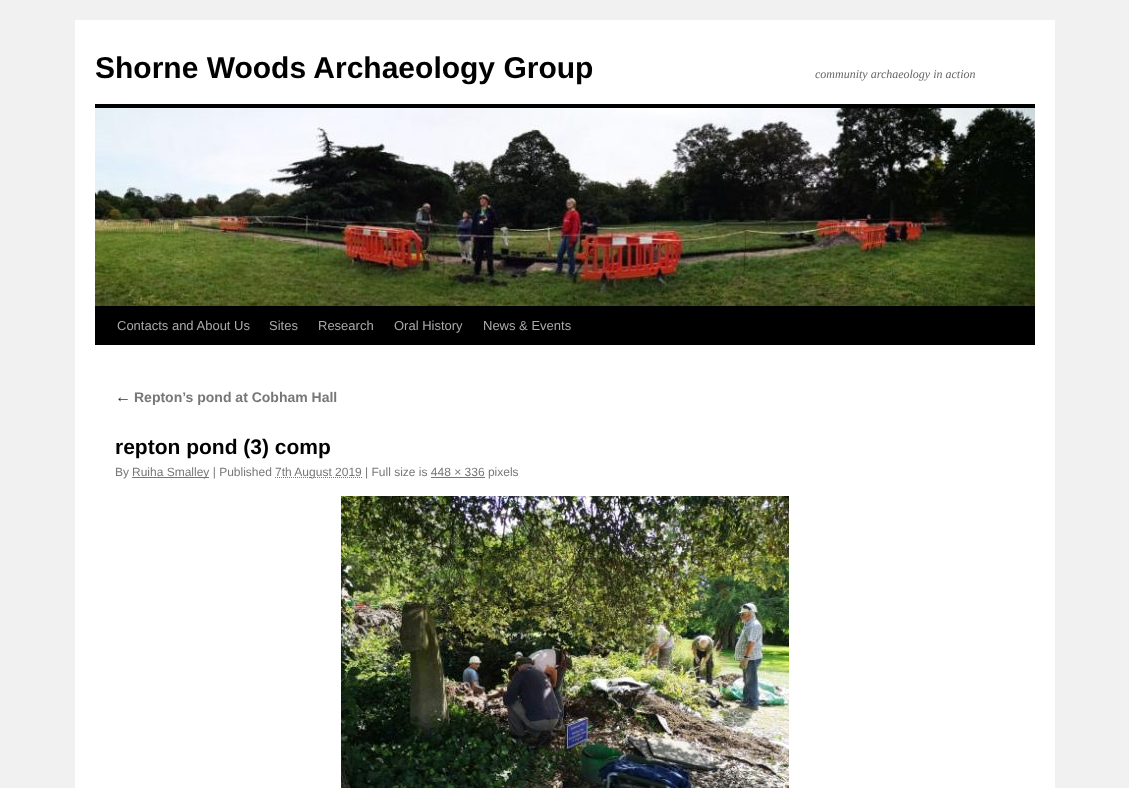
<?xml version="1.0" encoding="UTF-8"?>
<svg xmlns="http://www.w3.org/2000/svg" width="1129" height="788">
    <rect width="100%" height="100%" fill="#F1F1F1"/>
    <rect x="75" y="20" width="980" height="768" fill="#FFFFFF"/>
    <text x="95" y="78" font-family="Liberation Sans" font-size="30" font-weight="700" fill="#000000">Shorne Woods Archaeology Group</text>
    <text x="815" y="78" font-family="Liberation Serif" font-size="12" font-style="italic" fill="#666666">community archaeology in action</text>
    <rect x="95" y="104" width="940" height="4" fill="#000000"/>
    <rect x="95" y="306" width="940" height="39" fill="#000000"/>
    <image x="95" y="108" width="940" height="198" href="img_01.png"/>
    <text x="117" y="330" font-family="Liberation Sans" font-size="13" fill="#AAAAAA">Contacts and About Us</text>
    <text x="269" y="330" font-family="Liberation Sans" font-size="13" fill="#AAAAAA">Sites</text>
    <text x="318" y="330" font-family="Liberation Sans" font-size="13" fill="#AAAAAA">Research</text>
    <text x="394" y="330" font-family="Liberation Sans" font-size="13" fill="#AAAAAA">Oral History</text>
    <text x="483" y="330" font-family="Liberation Sans" font-size="13" fill="#AAAAAA">News &amp; Events</text>
    <text x="115" y="402" font-family="Liberation Serif" font-size="16" font-style="italic" fill="#333333">←</text>
    <text x="134" y="402" font-family="Liberation Sans" font-size="14" font-weight="700" fill="#777777">Repton’s pond at Cobham Hall</text>
    <text x="115" y="454" font-family="Liberation Sans" font-size="21" font-weight="700" fill="#000000">repton pond (3) comp</text>
    <text x="115" y="476" font-family="Liberation Sans" font-size="12" fill="#777777">By</text>
    <rect x="132" y="477" width="77" height="1" fill="#777777"/>
    <text x="132" y="476" font-family="Liberation Sans" font-size="12" fill="#777777">Ruiha Smalley | Published</text>
    <path d="M 275 477.5 H 362" fill="none" stroke="#777777" stroke-dasharray="1 1"/>
    <text x="275" y="476" font-family="Liberation Sans" font-size="12" fill="#777777">7th August 2019 | Full size is 448 × 336 pixels</text>
    <rect x="431" y="477" width="54" height="1" fill="#777777"/>
    <image x="341" y="496" width="448" height="292" href="img_02.png"/>
</svg>
